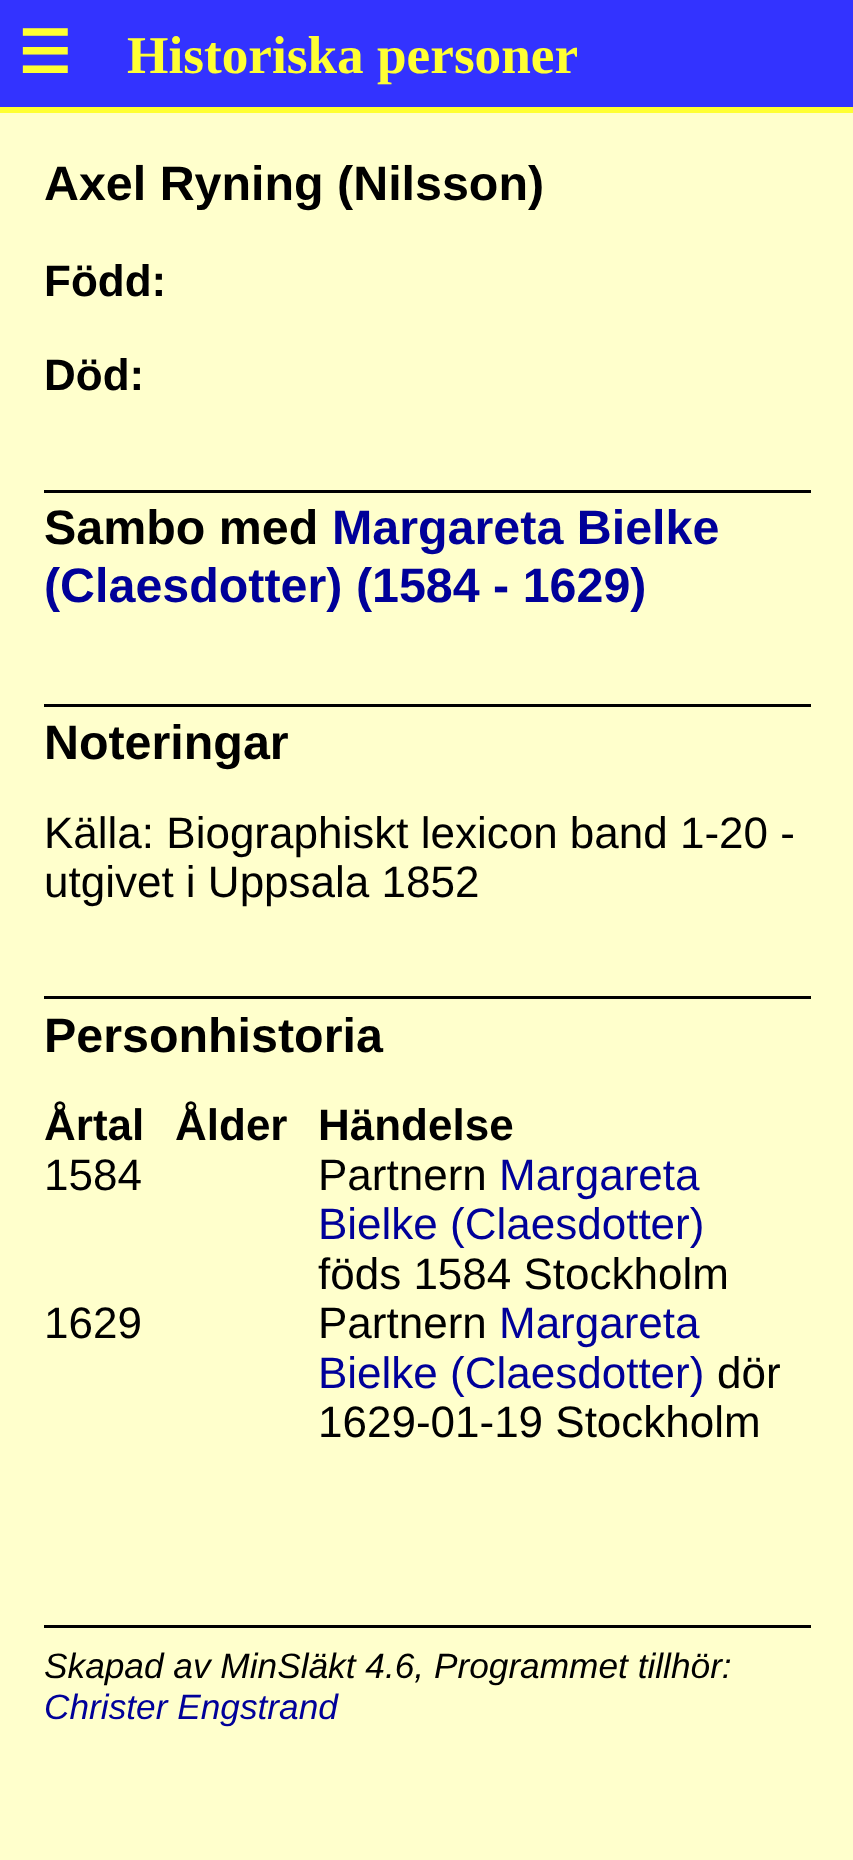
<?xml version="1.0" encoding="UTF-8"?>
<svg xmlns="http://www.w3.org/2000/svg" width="853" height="1860">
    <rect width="100%" height="100%" fill="#FFFFCC"/>
    <rect x="0" y="0" width="853" height="107" fill="#3333FF"/>
    <rect x="0" y="107" width="853" height="6" fill="#FFFF33"/>
    <text x="18" y="73" font-family="DejaVu Sans" font-size="59" font-weight="700" fill="#FFFF33">☰</text>
    <text x="127" y="73" font-family="Liberation Serif" font-size="53.25" font-weight="700" fill="#FFFF33">Historiska personer</text>
    <text x="44" y="200" font-family="Liberation Sans" font-size="48.4" font-weight="700" fill="#000000">Axel Ryning (Nilsson)</text>
    <text x="44" y="296" font-family="Liberation Sans" font-size="44" font-weight="700" fill="#000000">Född:</text>
    <text x="44" y="390" font-family="Liberation Sans" font-size="44" font-weight="700" fill="#000000">Död:</text>
    <rect x="44" y="490" width="767" height="3" fill="#000000"/>
    <text x="44" y="544" font-family="Liberation Sans" font-size="48.4" font-weight="700" fill="#000000">Sambo med</text>
    <text x="332" y="544" font-family="Liberation Sans" font-size="48.4" font-weight="700" fill="#000099">Margareta Bielke</text>
    <text x="44" y="602" font-family="Liberation Sans" font-size="48.4" font-weight="700" fill="#000099">(Claesdotter) (1584 - 1629)</text>
    <rect x="44" y="704" width="767" height="3" fill="#000000"/>
    <text x="44" y="759" font-family="Liberation Sans" font-size="48.4" font-weight="700" fill="#000000">Noteringar</text>
    <text font-family="Liberation Sans" font-size="44" fill="#000000">
        <tspan x="44" y="848">Källa: Biographiskt lexicon band 1-20 -</tspan>
        <tspan x="44" y="897">utgivet i Uppsala 1852</tspan>
    </text>
    <rect x="44" y="996" width="767" height="3" fill="#000000"/>
    <text x="44" y="1052" font-family="Liberation Sans" font-size="48.4" font-weight="700" fill="#000000">Personhistoria</text>
    <text x="44" y="1140" font-family="Liberation Sans" font-size="44" font-weight="700" fill="#000000">Årtal</text>
    <text x="175" y="1140" font-family="Liberation Sans" font-size="44" font-weight="700" fill="#000000">Ålder</text>
    <text x="318" y="1140" font-family="Liberation Sans" font-size="44" font-weight="700" fill="#000000">Händelse</text>
    <text x="44" y="1190" font-family="Liberation Sans" font-size="44" fill="#000000">1584</text>
    <text x="318" y="1190" font-family="Liberation Sans" font-size="44" fill="#000000">Partnern</text>
    <text x="499" y="1190" font-family="Liberation Sans" font-size="44" fill="#000099">Margareta</text>
    <text x="318" y="1239" font-family="Liberation Sans" font-size="44" fill="#000099">Bielke (Claesdotter)</text>
    <text x="318" y="1289" font-family="Liberation Sans" font-size="44" fill="#000000">föds 1584 Stockholm</text>
    <text x="44" y="1338" font-family="Liberation Sans" font-size="44" fill="#000000">1629</text>
    <text x="318" y="1338" font-family="Liberation Sans" font-size="44" fill="#000000">Partnern</text>
    <text x="499" y="1338" font-family="Liberation Sans" font-size="44" fill="#000099">Margareta</text>
    <text x="318" y="1388" font-family="Liberation Sans" font-size="44" fill="#000099">Bielke (Claesdotter)</text>
    <text x="717" y="1388" font-family="Liberation Sans" font-size="44" fill="#000000">dör</text>
    <text x="318" y="1437" font-family="Liberation Sans" font-size="44" fill="#000000">1629-01-19 Stockholm</text>
    <rect x="44" y="1625" width="767" height="3" fill="#000000"/>
    <text x="44" y="1678" font-family="Liberation Sans" font-size="35.25" font-style="italic" fill="#000000">Skapad av MinSläkt 4.6, Programmet tillhör:</text>
    <text x="44" y="1719" font-family="Liberation Sans" font-size="35.25" font-style="italic" fill="#000099">Christer Engstrand</text>
</svg>
